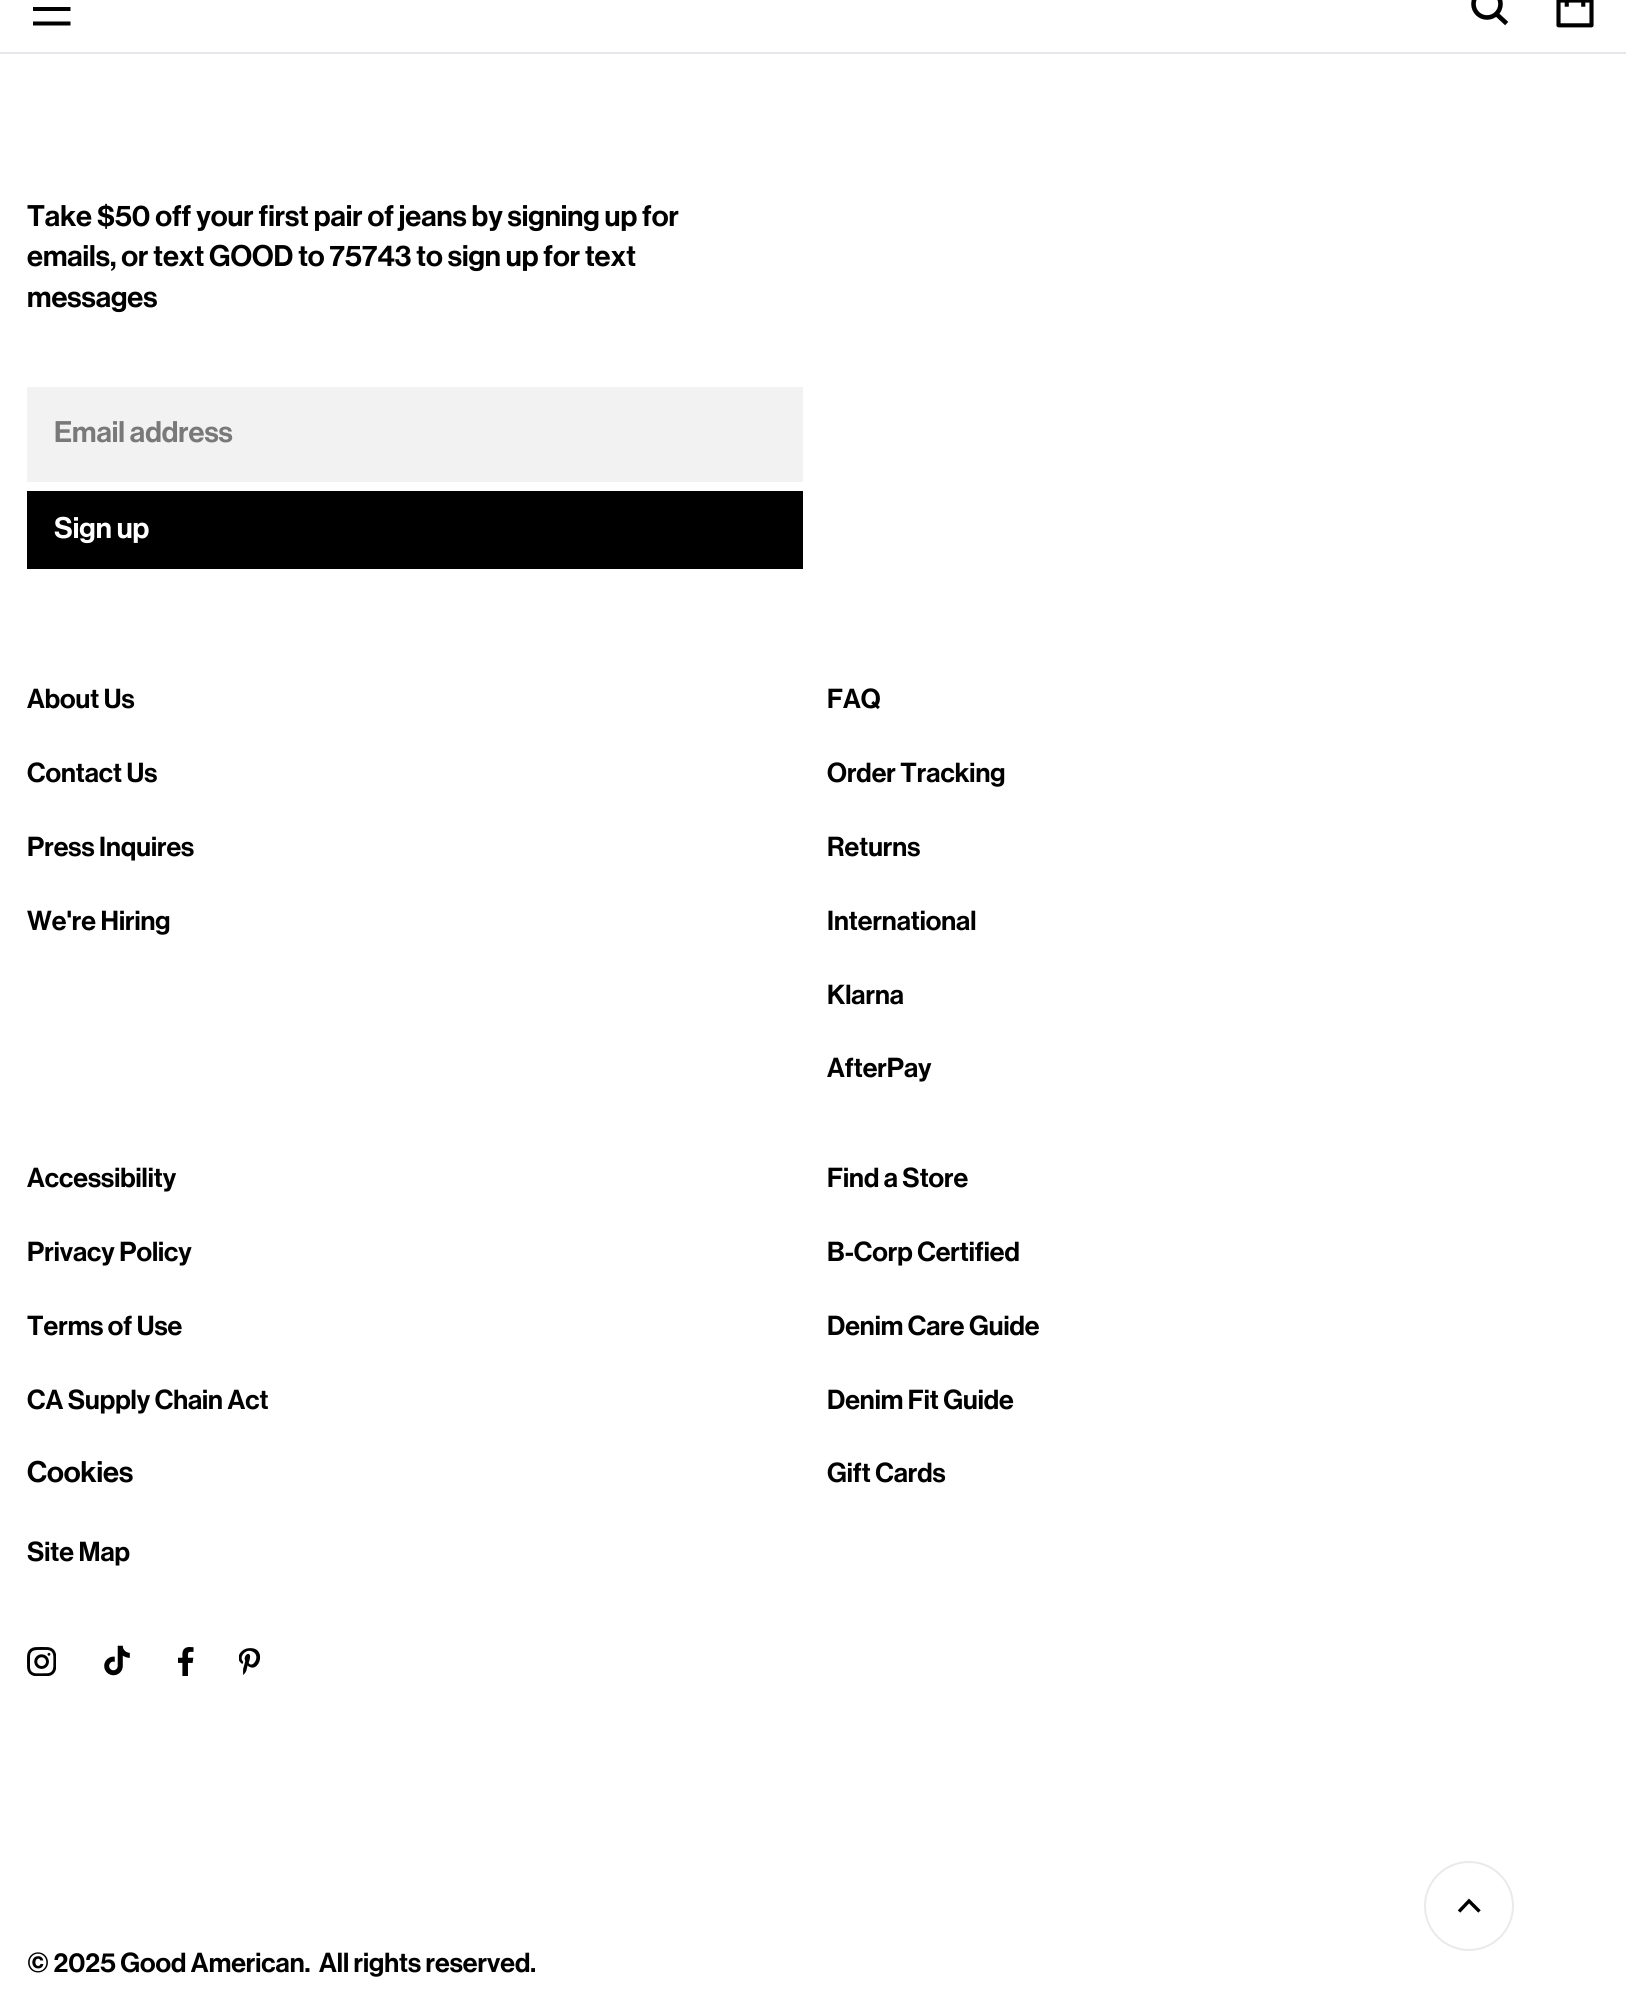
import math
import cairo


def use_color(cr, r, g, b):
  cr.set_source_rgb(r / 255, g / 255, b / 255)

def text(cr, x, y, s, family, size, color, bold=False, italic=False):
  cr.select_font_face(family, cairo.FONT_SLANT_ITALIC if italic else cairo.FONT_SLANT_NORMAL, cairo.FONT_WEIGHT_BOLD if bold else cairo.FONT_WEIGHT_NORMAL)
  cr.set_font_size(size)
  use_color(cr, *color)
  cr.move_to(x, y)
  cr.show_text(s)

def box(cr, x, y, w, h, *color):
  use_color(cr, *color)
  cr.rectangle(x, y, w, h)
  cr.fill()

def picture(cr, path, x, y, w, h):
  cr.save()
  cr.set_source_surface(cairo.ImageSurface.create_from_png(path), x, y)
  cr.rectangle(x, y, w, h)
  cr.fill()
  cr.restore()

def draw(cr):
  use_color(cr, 255, 255, 255)
  cr.paint()
  box(cr, 0, 52, 1626, 2, 229, 231, 235)
  use_color(cr, 0, 0, 0)
  cr.new_path()
  cr.move_to(33, -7.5)
  cr.line_to(70.5, -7.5)
  cr.line_to(70.5, -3.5)
  cr.line_to(33, -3.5)
  cr.close_path()
  cr.move_to(33, 7)
  cr.line_to(70.5, 7)
  cr.line_to(70.5, 11)
  cr.line_to(33, 11)
  cr.close_path()
  cr.move_to(33, 21.5)
  cr.line_to(70.5, 21.5)
  cr.line_to(70.5, 25.5)
  cr.line_to(33, 25.5)
  cr.close_path()
  cr.fill()
  cr.arc(1487, 4, 13.5, 0, 2 * math.pi)
  cr.set_line_width(4.6)
  cr.stroke()
  cr.new_path()
  cr.move_to(1498, 15.5)
  cr.line_to(1505, 22)
  cr.set_line_cap(cairo.LINE_CAP_SQUARE)
  cr.stroke()
  picture(cr, "img_01.png", 1556, 0, 38, 28)
  box(cr, 27, 387, 776, 95, 242, 242, 242)
  box(cr, 27, 491, 776, 78, 0, 0, 0)
  picture(cr, "img_02.png", 27, 1647, 29, 29)
  picture(cr, "img_03.png", 104, 1645, 26, 31)
  picture(cr, "img_04.png", 178, 1647, 16, 29)
  picture(cr, "img_05.png", 239, 1648, 22, 27)
  cr.arc(1469, 1906, 44, 0, 2 * math.pi)
  use_color(cr, 234, 234, 234)
  cr.set_line_width(2)
  cr.set_line_cap(cairo.LINE_CAP_BUTT)
  cr.stroke()
  cr.new_path()
  cr.move_to(1459, 1911.5)
  cr.line_to(1469, 1901)
  cr.line_to(1479.5, 1911.5)
  use_color(cr, 0, 0, 0)
  cr.set_line_width(3.4)
  cr.stroke()
  text(cr, 27, 226, "Take $50 off your first pair of jeans by signing up for", "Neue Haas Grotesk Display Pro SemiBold", 29.25, (0, 0, 0))
  text(cr, 27, 266, "emails, or text GOOD to 75743 to sign up for text", "Neue Haas Grotesk Display Pro SemiBold", 29.25, (0, 0, 0))
  text(cr, 27, 307, "messages", "Neue Haas Grotesk Display Pro SemiBold", 29.25, (0, 0, 0))
  text(cr, 54, 442, "Email address", "Neue Haas Grotesk Display Pro SemiBold", 29.25, (121, 121, 121))
  text(cr, 54, 538, "Sign up", "Neue Haas Grotesk Display Pro SemiBold", 29.25, (255, 255, 255))
  text(cr, 27, 708, "About Us", "Neue Haas Grotesk Display Pro SemiBold", 27, (0, 0, 0))
  text(cr, 27, 782, "Contact Us", "Neue Haas Grotesk Display Pro SemiBold", 27, (0, 0, 0))
  text(cr, 27, 856, "Press Inquires", "Neue Haas Grotesk Display Pro SemiBold", 27, (0, 0, 0))
  text(cr, 27, 930, "We're Hiring", "Neue Haas Grotesk Display Pro SemiBold", 27, (0, 0, 0))
  text(cr, 827, 708, "FAQ", "Neue Haas Grotesk Display Pro SemiBold", 27, (0, 0, 0))
  text(cr, 827, 782, "Order Tracking", "Neue Haas Grotesk Display Pro SemiBold", 27, (0, 0, 0))
  text(cr, 827, 856, "Returns", "Neue Haas Grotesk Display Pro SemiBold", 27, (0, 0, 0))
  text(cr, 827, 930, "International", "Neue Haas Grotesk Display Pro SemiBold", 27, (0, 0, 0))
  text(cr, 827, 1004, "Klarna", "Neue Haas Grotesk Display Pro SemiBold", 27, (0, 0, 0))
  text(cr, 827, 1077, "AfterPay", "Neue Haas Grotesk Display Pro SemiBold", 27, (0, 0, 0))
  text(cr, 27, 1187, "Accessibility", "Neue Haas Grotesk Display Pro SemiBold", 27, (0, 0, 0))
  text(cr, 27, 1261, "Privacy Policy", "Neue Haas Grotesk Display Pro SemiBold", 27, (0, 0, 0))
  text(cr, 27, 1335, "Terms of Use", "Neue Haas Grotesk Display Pro SemiBold", 27, (0, 0, 0))
  text(cr, 27, 1409, "CA Supply Chain Act", "Neue Haas Grotesk Display Pro SemiBold", 27, (0, 0, 0))
  text(cr, 27, 1482, "Cookies", "Neue Haas Grotesk Display Pro SemiBold", 29.25, (0, 0, 0))
  text(cr, 27, 1561, "Site Map", "Neue Haas Grotesk Display Pro SemiBold", 27, (0, 0, 0))
  text(cr, 827, 1187, "Find a Store", "Neue Haas Grotesk Display Pro SemiBold", 27, (0, 0, 0))
  text(cr, 827, 1261, "B-Corp Certified", "Neue Haas Grotesk Display Pro SemiBold", 27, (0, 0, 0))
  text(cr, 827, 1335, "Denim Care Guide", "Neue Haas Grotesk Display Pro SemiBold", 27, (0, 0, 0))
  text(cr, 827, 1409, "Denim Fit Guide", "Neue Haas Grotesk Display Pro SemiBold", 27, (0, 0, 0))
  text(cr, 827, 1482, "Gift Cards", "Neue Haas Grotesk Display Pro SemiBold", 27, (0, 0, 0))
  text(cr, 27, 1972, "© 2025 Good American.", "Neue Haas Grotesk Display Pro SemiBold", 27, (0, 0, 0))
  text(cr, 319, 1972, "All rights reserved.", "Neue Haas Grotesk Display Pro SemiBold", 27, (0, 0, 0))


surface = cairo.ImageSurface(cairo.FORMAT_RGB24, 1626, 2000)
cr = cairo.Context(surface)
options = cairo.FontOptions()
options.set_hint_metrics(cairo.HINT_METRICS_OFF)
options.set_hint_style(cairo.HINT_STYLE_NONE)
cr.set_font_options(options)
cr.set_miter_limit(4)
draw(cr)
surface.write_to_png("out.png")
